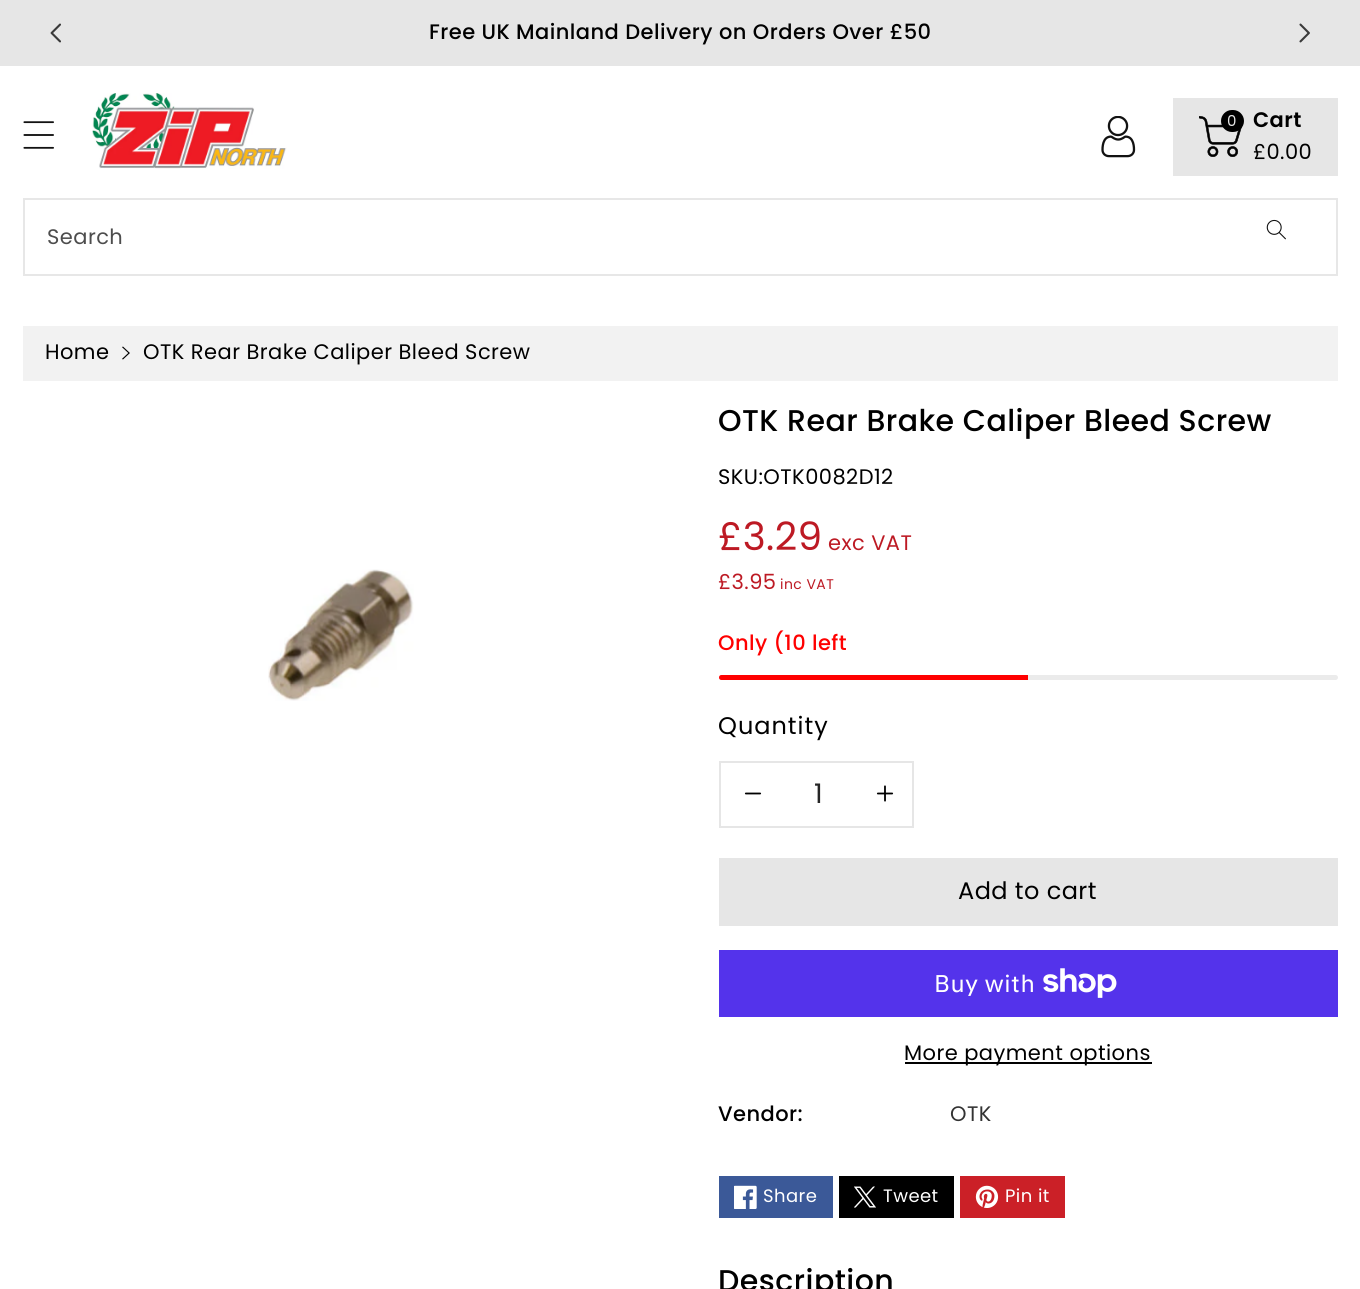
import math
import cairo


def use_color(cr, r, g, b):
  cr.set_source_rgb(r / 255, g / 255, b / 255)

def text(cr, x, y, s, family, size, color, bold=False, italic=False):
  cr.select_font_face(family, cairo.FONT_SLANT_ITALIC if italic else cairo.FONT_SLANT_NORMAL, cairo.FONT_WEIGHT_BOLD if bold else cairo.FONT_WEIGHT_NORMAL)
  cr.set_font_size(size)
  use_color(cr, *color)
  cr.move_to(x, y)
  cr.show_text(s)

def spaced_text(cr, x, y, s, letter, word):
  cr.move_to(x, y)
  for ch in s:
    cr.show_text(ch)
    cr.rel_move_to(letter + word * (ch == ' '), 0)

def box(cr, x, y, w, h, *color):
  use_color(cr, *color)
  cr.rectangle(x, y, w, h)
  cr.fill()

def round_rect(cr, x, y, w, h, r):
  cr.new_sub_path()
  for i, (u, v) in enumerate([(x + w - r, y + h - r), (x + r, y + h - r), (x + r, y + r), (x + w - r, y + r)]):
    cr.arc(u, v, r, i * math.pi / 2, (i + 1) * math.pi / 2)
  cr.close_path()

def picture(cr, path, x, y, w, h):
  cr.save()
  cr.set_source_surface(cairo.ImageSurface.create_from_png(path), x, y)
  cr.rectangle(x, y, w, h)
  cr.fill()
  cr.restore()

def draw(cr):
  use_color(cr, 255, 255, 255)
  cr.paint()
  box(cr, 0, 0, 1360, 66, 230, 230, 230)
  picture(cr, "img_01.png", 50, 23, 11, 20)
  picture(cr, "img_02.png", 1299, 23, 11, 20)
  picture(cr, "img_03.png", 92, 93, 195, 76)
  picture(cr, "img_04.png", 23, 121, 31, 28)
  picture(cr, "img_05.png", 1101, 116, 35, 42)
  box(cr, 1173, 98, 165, 78, 230, 230, 230)
  picture(cr, "img_06.png", 1199, 116, 43, 41)
  use_color(cr, 0, 0, 0)
  round_rect(cr, 1221, 110, 23, 22, 11)
  cr.fill()
  picture(cr, "img_07.png", 1266, 219, 20, 21)
  cr.rectangle(24, 199, 1313, 76)
  use_color(cr, 231, 231, 231)
  cr.stroke()
  box(cr, 23, 326, 1315, 55, 242, 242, 242)
  picture(cr, "img_08.png", 122, 346, 8, 14)
  picture(cr, "img_09.png", 268, 569, 146, 132)
  use_color(cr, 235, 235, 235)
  round_rect(cr, 719, 675, 619, 5, 2.5)
  cr.fill()
  use_color(cr, 255, 0, 0)
  cr.new_path()
  cr.move_to(721.5, 675)
  cr.line_to(1028, 675)
  cr.line_to(1028, 680)
  cr.line_to(721.5, 680)
  cr.curve_to(720, 680, 719, 679, 719, 677.5)
  cr.curve_to(719, 676, 720, 675, 721.5, 675)
  cr.close_path()
  cr.fill()
  picture(cr, "img_10.png", 744, 792, 18, 3)
  picture(cr, "img_11.png", 876, 785, 18, 17)
  cr.rectangle(720, 762, 193, 65)
  use_color(cr, 230, 230, 230)
  cr.stroke()
  box(cr, 719, 858, 619, 68, 230, 230, 230)
  box(cr, 719, 950, 619, 67, 84, 51, 235)
  picture(cr, "img_12.png", 1043, 968, 74, 30)
  box(cr, 905, 1062, 247, 2, 0, 0, 0)
  box(cr, 719, 1176, 114, 42, 59, 89, 152)
  picture(cr, "img_13.png", 734, 1185, 23, 24)
  box(cr, 839, 1176, 115, 42, 0, 0, 0)
  picture(cr, "img_14.png", 854, 1186, 22, 22)
  box(cr, 960, 1176, 105, 42, 203, 32, 39)
  picture(cr, "img_15.png", 975, 1185, 24, 23)
  cr.select_font_face("Poppins Medium")
  cr.set_font_size(21)
  use_color(cr, 0, 0, 0)
  spaced_text(cr, 429, 39, "Free UK Mainland Delivery on Orders Over £50", 0.45, 0)
  cr.select_font_face("Poppins")
  cr.set_font_size(15)
  use_color(cr, 230, 230, 230)
  spaced_text(cr, 1227, 126, "0", 0.45, 0)
  cr.select_font_face("Poppins SemiBold")
  cr.set_font_size(21)
  use_color(cr, 0, 0, 0)
  spaced_text(cr, 1253, 127, "Cart", 0.45, 0)
  cr.select_font_face("Poppins")
  spaced_text(cr, 1253, 159, "£0.00", 0.45, 0)
  use_color(cr, 77, 77, 77)
  spaced_text(cr, 47, 244, "Search", 0.45, 0)
  use_color(cr, 0, 0, 0)
  spaced_text(cr, 45, 359, "Home", 0.45, 0)
  spaced_text(cr, 143, 359, "OTK Rear Brake Caliper Bleed Screw", 0.45, 0)
  cr.select_font_face("Poppins Medium")
  cr.set_font_size(30)
  spaced_text(cr, 718, 431, "OTK Rear Brake Caliper Bleed Screw", 0.45, 0)
  cr.select_font_face("Poppins")
  cr.set_font_size(21)
  spaced_text(cr, 718, 484, "SKU:OTK0082D12", 0.45, 0)
  cr.set_font_size(39)
  use_color(cr, 189, 26, 36)
  spaced_text(cr, 718, 550, "£3.29", 0.45, 0)
  cr.set_font_size(21)
  spaced_text(cr, 828, 550, "exc VAT", 0.45, 0)
  spaced_text(cr, 718, 589, "£3.95", 0.45, 0)
  cr.set_font_size(14)
  spaced_text(cr, 780, 589, "inc VAT", 0.45, 0)
  cr.select_font_face("Poppins Medium")
  cr.set_font_size(21)
  use_color(cr, 255, 0, 0)
  spaced_text(cr, 718, 650, "Only (10 left", 0.45, 0)
  cr.select_font_face("Poppins")
  cr.set_font_size(24)
  use_color(cr, 0, 0, 0)
  spaced_text(cr, 718, 734, "Quantity", 1, 0)
  text(cr, 814, 803, "1", "Poppins", 27, (38, 38, 38))
  cr.set_font_size(24)
  use_color(cr, 0, 0, 0)
  spaced_text(cr, 958, 899, "Add to cart", 0.45, 0)
  cr.select_font_face("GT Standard")
  use_color(cr, 255, 255, 255)
  spaced_text(cr, 934, 992, "Buy with", 0.45, 0)
  cr.select_font_face("Poppins")
  cr.set_font_size(21)
  use_color(cr, 0, 0, 0)
  spaced_text(cr, 904, 1060, "More payment options", 0.45, 0)
  cr.select_font_face("Poppins Medium")
  spaced_text(cr, 718, 1121, "Vendor:", 0.45, 0)
  cr.select_font_face("Poppins")
  use_color(cr, 51, 51, 51)
  spaced_text(cr, 950, 1121, "OTK", 0.45, 0)
  cr.set_font_size(18)
  use_color(cr, 255, 255, 255)
  spaced_text(cr, 763, 1202, "Share", 0.45, 0)
  spaced_text(cr, 883, 1202, "Tweet", 0.45, 0)
  spaced_text(cr, 1005, 1202, "Pin it", 0.45, 0)
  cr.select_font_face("Poppins Medium")
  cr.set_font_size(30)
  use_color(cr, 0, 0, 0)
  spaced_text(cr, 718, 1291, "Description", 0.45, 0)


surface = cairo.ImageSurface(cairo.FORMAT_RGB24, 1360, 1289)
cr = cairo.Context(surface)
options = cairo.FontOptions()
options.set_hint_metrics(cairo.HINT_METRICS_OFF)
options.set_hint_style(cairo.HINT_STYLE_NONE)
cr.set_font_options(options)
cr.set_miter_limit(4)
draw(cr)
surface.write_to_png("out.png")
